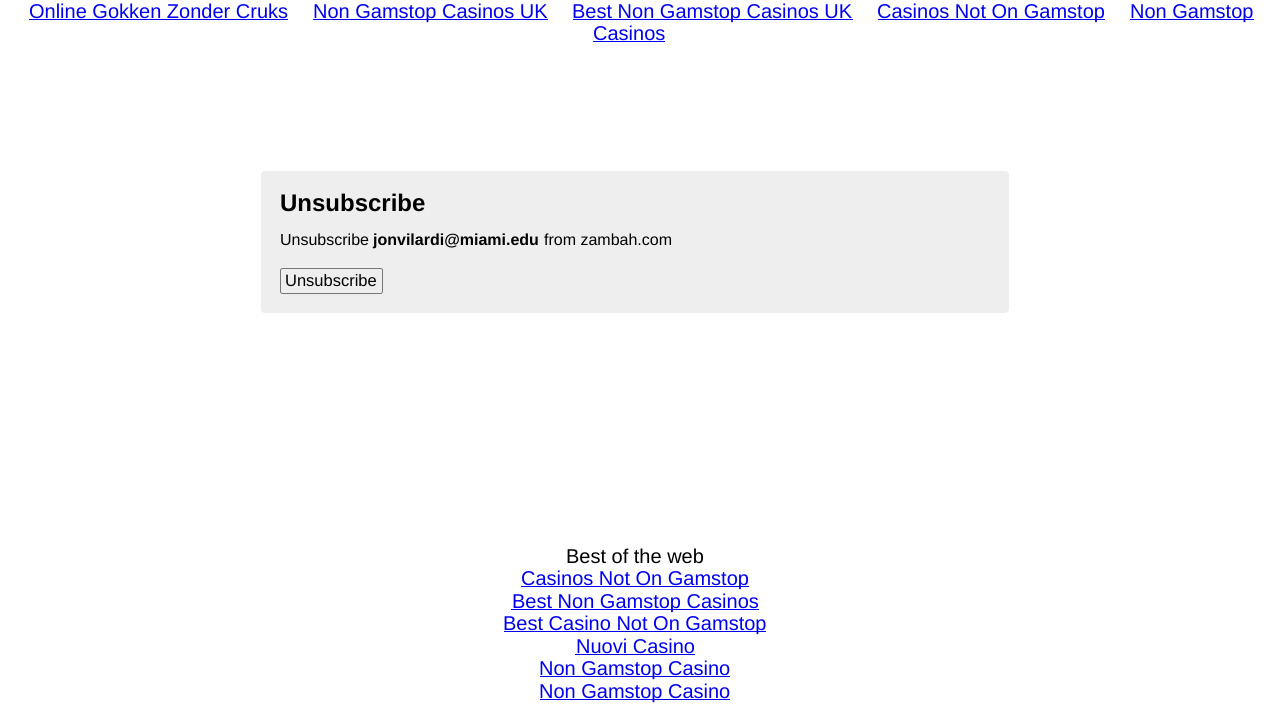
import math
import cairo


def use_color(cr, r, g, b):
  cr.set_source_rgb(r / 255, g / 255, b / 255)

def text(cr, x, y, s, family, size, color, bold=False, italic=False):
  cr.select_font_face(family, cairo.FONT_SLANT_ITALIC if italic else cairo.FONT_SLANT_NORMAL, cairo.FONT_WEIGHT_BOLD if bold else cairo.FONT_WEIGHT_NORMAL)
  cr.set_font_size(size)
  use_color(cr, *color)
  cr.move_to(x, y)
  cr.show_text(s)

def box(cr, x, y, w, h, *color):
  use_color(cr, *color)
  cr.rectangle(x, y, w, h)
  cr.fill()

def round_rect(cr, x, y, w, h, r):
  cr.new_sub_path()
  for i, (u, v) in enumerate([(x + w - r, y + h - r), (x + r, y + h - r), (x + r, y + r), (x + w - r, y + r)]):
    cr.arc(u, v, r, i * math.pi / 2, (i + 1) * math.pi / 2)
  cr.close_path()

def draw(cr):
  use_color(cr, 255, 255, 255)
  cr.paint()
  box(cr, 29, 19, 259, 1, 0, 0, 238)
  box(cr, 313, 19, 235, 1, 0, 0, 238)
  box(cr, 573, 19, 280, 1, 0, 0, 238)
  box(cr, 878, 19, 227, 1, 0, 0, 238)
  box(cr, 1130, 19, 124, 1, 0, 0, 238)
  box(cr, 593, 41, 72, 1, 0, 0, 238)
  use_color(cr, 238, 238, 238)
  round_rect(cr, 260.5, 170.5, 749, 143, 4.5)
  cr.fill_preserve()
  use_color(cr, 255, 255, 255)
  cr.set_line_width(1)
  cr.stroke()
  round_rect(cr, 280.5, 268.5, 102, 25, 2)
  use_color(cr, 118, 118, 118)
  cr.stroke()
  box(cr, 521, 586, 228, 1, 0, 0, 238)
  box(cr, 511, 609, 248, 1, 0, 0, 238)
  box(cr, 504, 631, 262, 1, 0, 0, 238)
  box(cr, 575, 654, 120, 1, 0, 0, 238)
  box(cr, 540, 676, 190, 1, 0, 0, 238)
  box(cr, 540, 699, 190, 1, 0, 0, 238)
  text(cr, 29, 18, "Online Gokken Zonder Cruks", "Liberation Sans", 20, (0, 0, 238))
  text(cr, 313, 18, "Non Gamstop Casinos UK", "Liberation Sans", 20, (0, 0, 238))
  text(cr, 572, 18, "Best Non Gamstop Casinos UK", "Liberation Sans", 20, (0, 0, 238))
  text(cr, 877, 18, "Casinos Not On Gamstop", "Liberation Sans", 20, (0, 0, 238))
  text(cr, 1130, 18, "Non Gamstop", "Liberation Sans", 20, (0, 0, 238))
  text(cr, 593, 40, "Casinos", "Liberation Sans", 20, (0, 0, 238))
  text(cr, 280, 211, "Unsubscribe", "Liberation Sans", 24, (0, 0, 0), bold=True)
  text(cr, 280, 245, "Unsubscribe", "Liberation Sans", 16, (0, 0, 0))
  text(cr, 373, 245, "jonvilardi@miami.edu", "Liberation Sans", 16, (0, 0, 0), bold=True)
  text(cr, 544, 245, "from zambah.com", "Liberation Sans", 16, (0, 0, 0))
  text(cr, 285, 286, "Unsubscribe", "Liberation Sans", 16.5, (0, 0, 0))
  text(cr, 566, 563, "Best of the web", "Liberation Sans", 20, (0, 0, 0))
  text(cr, 521, 585, "Casinos Not On Gamstop", "Liberation Sans", 20, (0, 0, 238))
  text(cr, 512, 608, "Best Non Gamstop Casinos", "Liberation Sans", 20, (0, 0, 238))
  text(cr, 503, 630, "Best Casino Not On Gamstop", "Liberation Sans", 20, (0, 0, 238))
  text(cr, 576, 653, "Nuovi Casino", "Liberation Sans", 20, (0, 0, 238))
  text(cr, 539, 675, "Non Gamstop Casino", "Liberation Sans", 20, (0, 0, 238))
  text(cr, 539, 698, "Non Gamstop Casino", "Liberation Sans", 20, (0, 0, 238))


surface = cairo.ImageSurface(cairo.FORMAT_RGB24, 1269, 704)
cr = cairo.Context(surface)
options = cairo.FontOptions()
options.set_hint_metrics(cairo.HINT_METRICS_OFF)
options.set_hint_style(cairo.HINT_STYLE_NONE)
cr.set_font_options(options)
cr.set_miter_limit(4)
draw(cr)
surface.write_to_png("out.png")
